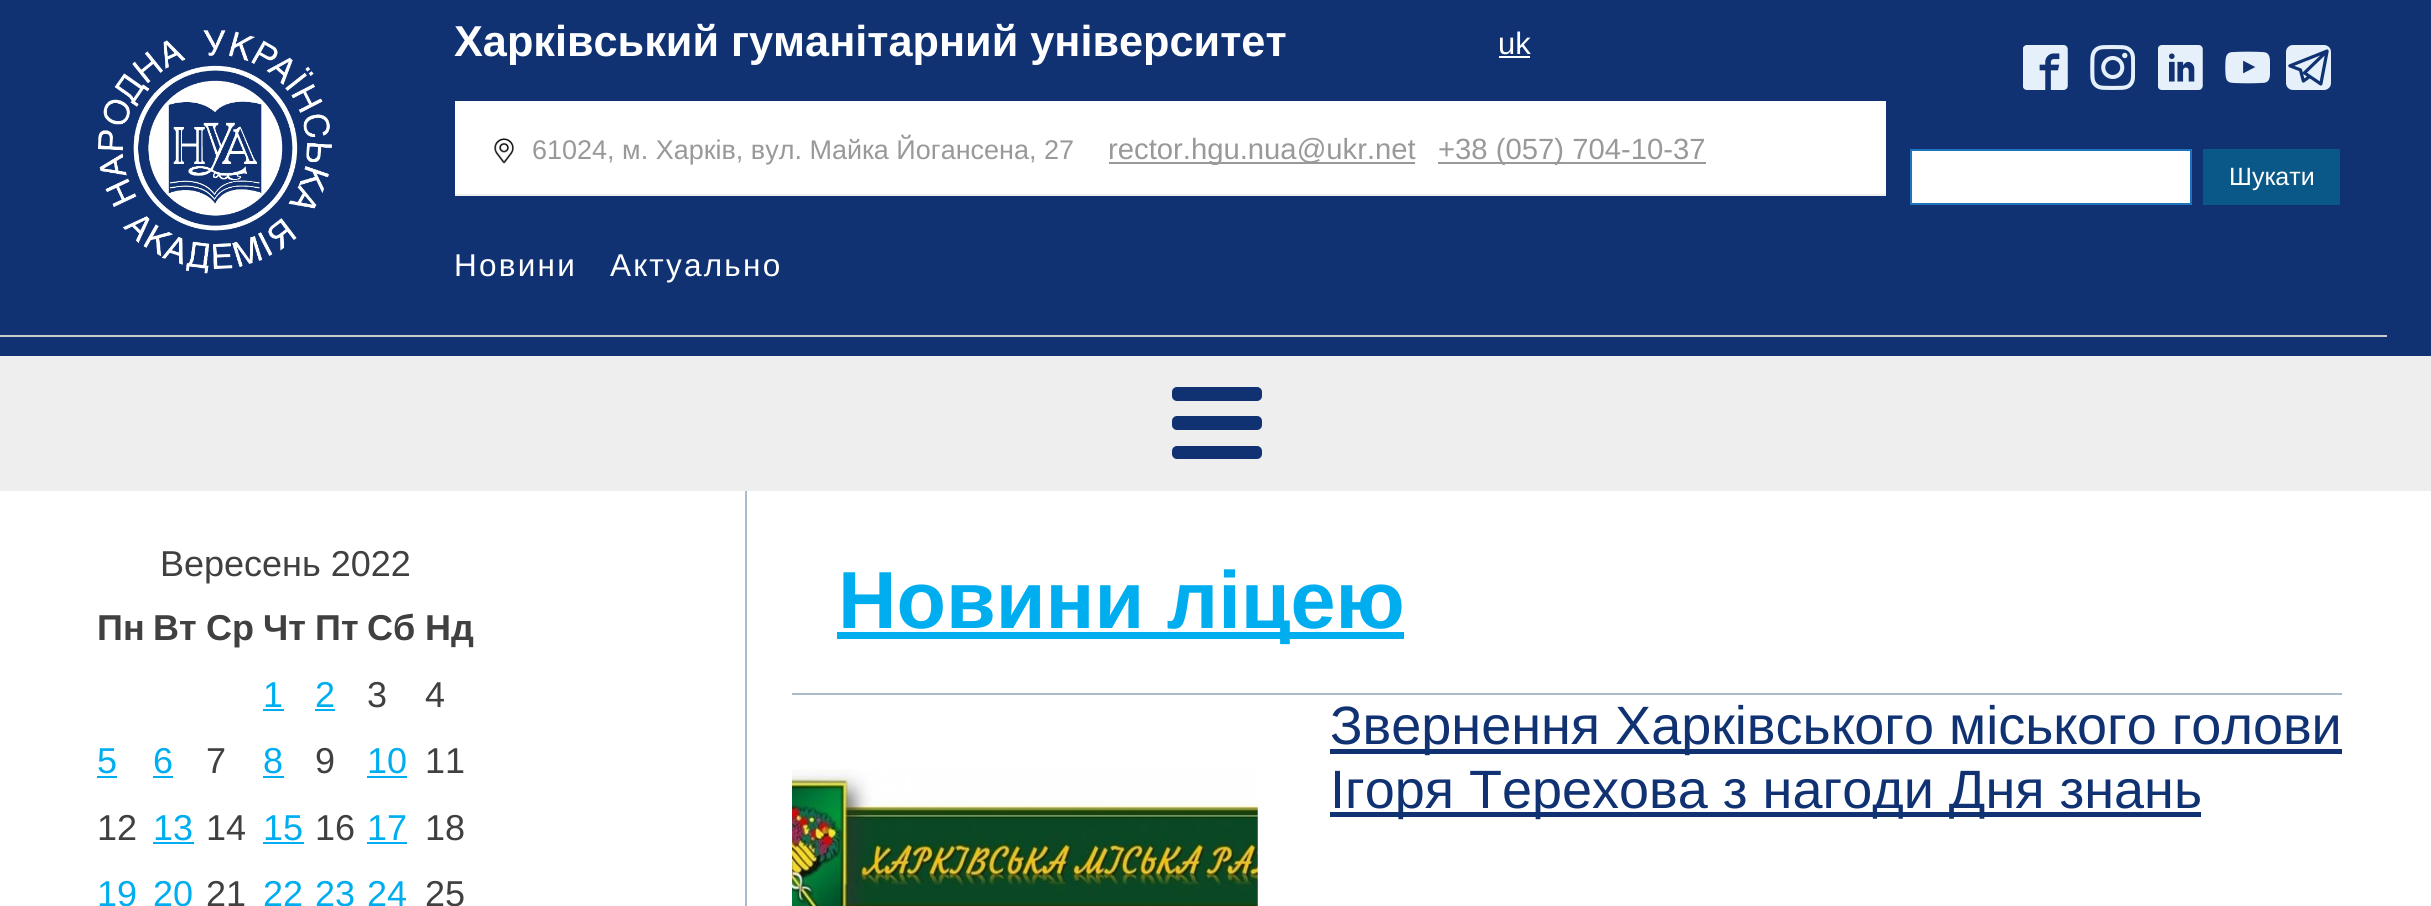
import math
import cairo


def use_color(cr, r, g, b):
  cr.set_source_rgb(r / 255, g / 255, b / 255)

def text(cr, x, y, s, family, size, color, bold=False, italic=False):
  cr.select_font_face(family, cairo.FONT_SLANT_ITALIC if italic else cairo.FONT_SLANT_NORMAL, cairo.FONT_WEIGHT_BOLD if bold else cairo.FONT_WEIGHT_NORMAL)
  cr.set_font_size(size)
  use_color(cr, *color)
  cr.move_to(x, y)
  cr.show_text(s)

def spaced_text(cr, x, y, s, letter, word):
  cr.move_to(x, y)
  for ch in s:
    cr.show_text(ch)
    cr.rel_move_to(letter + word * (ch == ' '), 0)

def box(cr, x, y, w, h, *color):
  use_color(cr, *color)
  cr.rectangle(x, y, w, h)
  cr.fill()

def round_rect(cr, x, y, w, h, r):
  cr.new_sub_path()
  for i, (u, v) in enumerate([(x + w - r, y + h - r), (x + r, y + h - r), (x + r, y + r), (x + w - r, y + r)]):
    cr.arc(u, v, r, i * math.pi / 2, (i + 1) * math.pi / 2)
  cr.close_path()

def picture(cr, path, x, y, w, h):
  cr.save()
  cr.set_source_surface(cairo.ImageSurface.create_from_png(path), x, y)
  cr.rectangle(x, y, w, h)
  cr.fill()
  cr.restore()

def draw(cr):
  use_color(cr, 255, 255, 255)
  cr.paint()
  box(cr, 0, 0, 2431, 356, 16, 50, 114)
  box(cr, 0, 335, 2387, 2, 204, 204, 204)
  picture(cr, "img_01.png", 98, 30, 234, 244)
  box(cr, 1499, 56, 31, 2, 255, 255, 255)
  box(cr, 455, 101, 1431, 93, 255, 255, 255)
  box(cr, 455, 194, 1431, 2, 238, 238, 238)
  picture(cr, "img_02.png", 494, 138, 20, 26)
  box(cr, 1109, 162, 306, 2, 153, 153, 153)
  box(cr, 1438, 162, 268, 2, 153, 153, 153)
  picture(cr, "img_03.png", 2023, 45, 45, 45)
  picture(cr, "img_04.png", 2090, 45, 45, 45)
  picture(cr, "img_05.png", 2158, 45, 45, 45)
  picture(cr, "img_06.png", 2225, 51, 45, 33)
  use_color(cr, 230, 240, 250)
  round_rect(cr, 2287, 46, 43, 43, 6)
  cr.fill_preserve()
  cr.stroke()
  picture(cr, "img_07.png", 2288, 49, 41, 37)
  use_color(cr, 255, 255, 255)
  cr.rectangle(1911, 150, 280, 54)
  cr.fill_preserve()
  use_color(cr, 30, 115, 190)
  cr.stroke()
  box(cr, 2203, 149, 137, 56, 10, 88, 136)
  box(cr, 0, 356, 2431, 135, 238, 238, 238)
  use_color(cr, 16, 50, 114)
  round_rect(cr, 1172, 387, 90, 14, 5)
  cr.fill()
  round_rect(cr, 1172, 416, 90, 14, 5)
  cr.fill()
  round_rect(cr, 1172, 446, 90, 13, 5)
  cr.fill()
  box(cr, 745, 491, 2, 415, 170, 187, 204)
  box(cr, 263, 709, 21, 2, 0, 173, 239)
  box(cr, 315, 709, 20, 2, 0, 173, 239)
  box(cr, 97, 776, 20, 2, 0, 173, 239)
  box(cr, 153, 776, 20, 2, 0, 173, 239)
  box(cr, 263, 776, 21, 2, 0, 173, 239)
  box(cr, 367, 776, 40, 2, 0, 173, 239)
  box(cr, 153, 842, 41, 2, 0, 173, 239)
  box(cr, 263, 842, 41, 2, 0, 173, 239)
  box(cr, 367, 842, 40, 2, 0, 173, 239)
  box(cr, 792, 693, 1550, 2, 170, 187, 204)
  box(cr, 837, 632, 567, 7, 0, 173, 239)
  picture(cr, "img_08.png", 792, 769, 466, 137)
  box(cr, 1330, 749, 1012, 5, 16, 50, 114)
  box(cr, 1330, 812, 871, 5, 16, 50, 114)
  text(cr, 454, 56, "Харківський гуманітарний університет", "Liberation Sans", 43.25, (255, 255, 255), bold=True)
  text(cr, 1498, 54, "uk", "Liberation Sans", 31, (255, 255, 255))
  text(cr, 532, 159, "61024, м. Харків, вул. Майка Йогансена, 27", "Liberation Sans", 27, (153, 153, 153))
  text(cr, 1108, 159, "rector.hgu.nua@ukr.net", "Liberation Sans", 29.25, (153, 153, 153))
  text(cr, 1438, 159, "+38 (057) 704-10-37", "Liberation Sans", 29.25, (153, 153, 153))
  cr.set_font_size(31.5)
  use_color(cr, 255, 255, 255)
  spaced_text(cr, 454, 276, "Новини", 2.25, 0)
  spaced_text(cr, 610, 276, "Актуально", 2.25, 0)
  text(cr, 2229, 185, "Шукати", "Liberation Sans", 25, (255, 255, 255))
  text(cr, 160, 576, "Вересень 2022", "Liberation Sans", 36, (64, 64, 64))
  text(cr, 97, 640, "Пн", "Liberation Sans", 36, (64, 64, 64), bold=True)
  text(cr, 153, 640, "Вт", "Liberation Sans", 36, (64, 64, 64), bold=True)
  text(cr, 206, 640, "Ср", "Liberation Sans", 36, (64, 64, 64), bold=True)
  text(cr, 263, 640, "Чт", "Liberation Sans", 36, (64, 64, 64), bold=True)
  text(cr, 315, 640, "Пт", "Liberation Sans", 36, (64, 64, 64), bold=True)
  text(cr, 367, 640, "Сб", "Liberation Sans", 36, (64, 64, 64), bold=True)
  text(cr, 425, 640, "Нд", "Liberation Sans", 36, (64, 64, 64), bold=True)
  text(cr, 263, 707, "1", "Liberation Sans", 36, (0, 173, 239))
  text(cr, 315, 707, "2", "Liberation Sans", 36, (0, 173, 239))
  text(cr, 367, 707, "3", "Liberation Sans", 36, (64, 64, 64))
  text(cr, 425, 707, "4", "Liberation Sans", 36, (64, 64, 64))
  text(cr, 97, 773, "5", "Liberation Sans", 36, (0, 173, 239))
  text(cr, 153, 773, "6", "Liberation Sans", 36, (0, 173, 239))
  text(cr, 206, 773, "7", "Liberation Sans", 36, (64, 64, 64))
  text(cr, 263, 773, "8", "Liberation Sans", 36, (0, 173, 239))
  text(cr, 315, 773, "9", "Liberation Sans", 36, (64, 64, 64))
  text(cr, 367, 773, "10", "Liberation Sans", 36, (0, 173, 239))
  text(cr, 425, 773, "11", "Liberation Sans", 36, (64, 64, 64))
  text(cr, 97, 840, "12", "Liberation Sans", 36, (64, 64, 64))
  text(cr, 153, 840, "13", "Liberation Sans", 36, (0, 173, 239))
  text(cr, 206, 840, "14", "Liberation Sans", 36, (64, 64, 64))
  text(cr, 263, 840, "15", "Liberation Sans", 36, (0, 173, 239))
  text(cr, 315, 840, "16", "Liberation Sans", 36, (64, 64, 64))
  text(cr, 367, 840, "17", "Liberation Sans", 36, (0, 173, 239))
  text(cr, 425, 840, "18", "Liberation Sans", 36, (64, 64, 64))
  text(cr, 97, 906, "19", "Liberation Sans", 36, (0, 173, 239))
  text(cr, 153, 906, "20", "Liberation Sans", 36, (0, 173, 239))
  text(cr, 206, 906, "21", "Liberation Sans", 36, (64, 64, 64))
  text(cr, 263, 906, "22", "Liberation Sans", 36, (0, 173, 239))
  text(cr, 315, 906, "23", "Liberation Sans", 36, (0, 173, 239))
  text(cr, 367, 906, "24", "Liberation Sans", 36, (0, 173, 239))
  text(cr, 425, 906, "25", "Liberation Sans", 36, (64, 64, 64))
  text(cr, 838, 628, "Новини ліцею", "Liberation Sans", 81, (0, 173, 239), bold=True)
  text(cr, 1330, 744, "Звернення Харківського міського голови", "Liberation Sans", 54, (16, 50, 114))
  text(cr, 1330, 808, "Ігоря Терехова з нагоди Дня знань", "Liberation Sans", 54, (16, 50, 114))


surface = cairo.ImageSurface(cairo.FORMAT_RGB24, 2431, 906)
cr = cairo.Context(surface)
options = cairo.FontOptions()
options.set_hint_metrics(cairo.HINT_METRICS_OFF)
options.set_hint_style(cairo.HINT_STYLE_NONE)
cr.set_font_options(options)
cr.set_miter_limit(4)
draw(cr)
surface.write_to_png("out.png")
